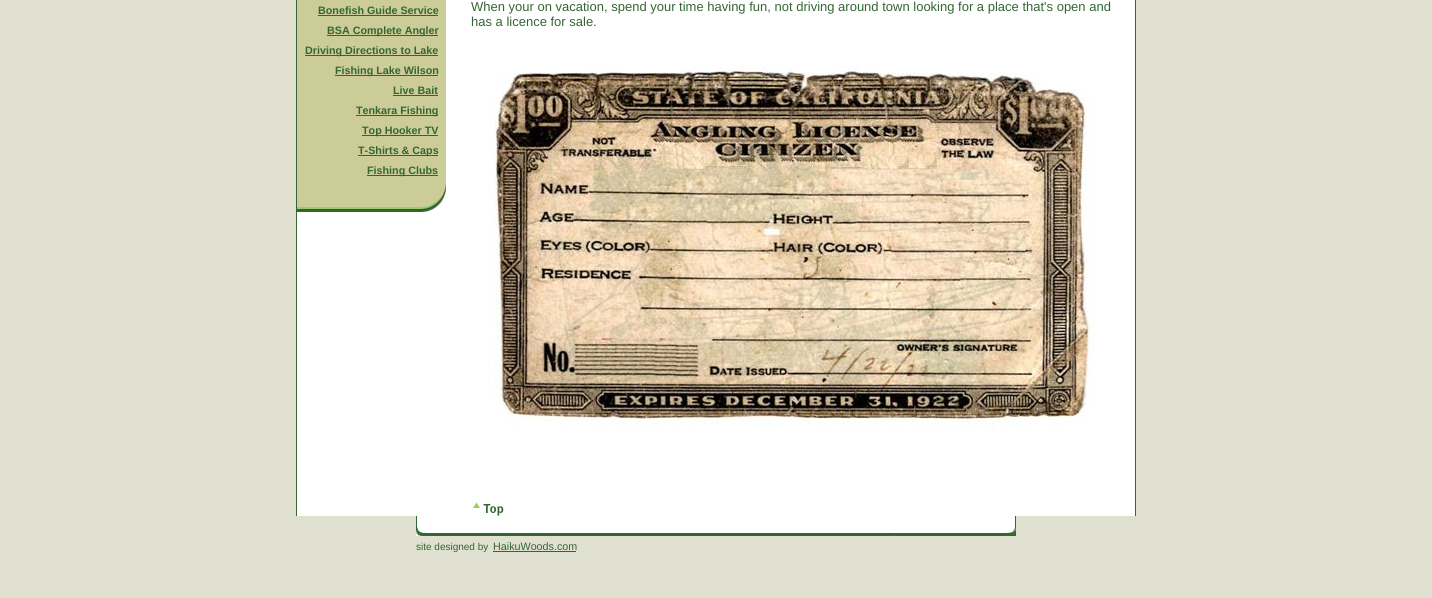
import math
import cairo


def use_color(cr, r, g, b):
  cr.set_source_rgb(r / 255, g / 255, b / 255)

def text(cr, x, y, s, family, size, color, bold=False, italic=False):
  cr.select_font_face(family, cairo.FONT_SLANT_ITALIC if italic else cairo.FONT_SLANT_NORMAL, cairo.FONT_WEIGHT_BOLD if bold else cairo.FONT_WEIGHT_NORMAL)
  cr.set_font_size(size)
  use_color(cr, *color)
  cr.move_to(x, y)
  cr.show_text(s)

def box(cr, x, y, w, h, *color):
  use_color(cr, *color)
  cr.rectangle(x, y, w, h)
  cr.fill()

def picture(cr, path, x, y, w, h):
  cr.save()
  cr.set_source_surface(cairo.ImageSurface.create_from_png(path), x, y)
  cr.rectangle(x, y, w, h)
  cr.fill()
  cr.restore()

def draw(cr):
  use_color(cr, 224, 224, 209)
  cr.paint()
  box(cr, 296, 0, 1, 516, 51, 102, 51)
  box(cr, 297, 0, 838, 516, 255, 255, 255)
  box(cr, 297, 0, 149, 180, 204, 204, 153)
  box(cr, 318, 15, 120, 1, 51, 102, 51)
  box(cr, 327, 35, 111, 1, 51, 102, 51)
  box(cr, 305, 55, 133, 1, 51, 102, 51)
  box(cr, 335, 75, 103, 1, 51, 102, 51)
  box(cr, 393, 95, 45, 1, 51, 102, 51)
  box(cr, 356, 115, 82, 1, 51, 102, 51)
  box(cr, 362, 135, 76, 1, 51, 102, 51)
  box(cr, 358, 155, 80, 1, 51, 102, 51)
  box(cr, 367, 175, 71, 1, 51, 102, 51)
  picture(cr, "img_01.png", 297, 180, 149, 32)
  picture(cr, "img_02.png", 488, 65, 607, 365)
  picture(cr, "img_03.png", 473, 502, 31, 14)
  box(cr, 1135, 0, 1, 516, 51, 102, 51)
  box(cr, 416, 516, 1, 10, 51, 102, 51)
  box(cr, 417, 516, 598, 10, 255, 255, 255)
  box(cr, 1015, 516, 1, 10, 51, 102, 51)
  picture(cr, "img_04.png", 416, 526, 600, 10)
  box(cr, 493, 551, 83, 1, 51, 102, 51)
  text(cr, 318, 14, "Bonefish Guide Service", "Liberation Sans", 10.75, (51, 102, 51), bold=True)
  text(cr, 327, 34, "BSA Complete Angler", "Liberation Sans", 10.75, (51, 102, 51), bold=True)
  text(cr, 305, 54, "Driving Directions to Lake", "Liberation Sans", 10.75, (51, 102, 51), bold=True)
  text(cr, 335, 74, "Fishing Lake Wilson", "Liberation Sans", 10.75, (51, 102, 51), bold=True)
  text(cr, 393, 94, "Live Bait", "Liberation Sans", 10.75, (51, 102, 51), bold=True)
  text(cr, 356, 114, "Tenkara Fishing", "Liberation Sans", 10.75, (51, 102, 51), bold=True)
  text(cr, 362, 134, "Top Hooker TV", "Liberation Sans", 10.75, (51, 102, 51), bold=True)
  text(cr, 358, 154, "T-Shirts & Caps", "Liberation Sans", 10.75, (51, 102, 51), bold=True)
  text(cr, 367, 174, "Fishing Clubs", "Liberation Sans", 10.75, (51, 102, 51), bold=True)
  text(cr, 471, 11, "When your on vacation, spend your time having fun, not driving around town looking for a place that's open and", "Liberation Sans", 13, (51, 102, 51))
  text(cr, 471, 26, "has a licence for sale.", "Liberation Sans", 13, (51, 102, 51))
  text(cr, 416, 550, "site designed by", "Liberation Sans", 10, (51, 102, 51))
  text(cr, 493, 550, "HaikuWoods.com", "Liberation Sans", 10.75, (51, 102, 51))


surface = cairo.ImageSurface(cairo.FORMAT_RGB24, 1432, 598)
cr = cairo.Context(surface)
options = cairo.FontOptions()
options.set_hint_metrics(cairo.HINT_METRICS_OFF)
options.set_hint_style(cairo.HINT_STYLE_NONE)
cr.set_font_options(options)
cr.set_miter_limit(4)
draw(cr)
surface.write_to_png("out.png")
